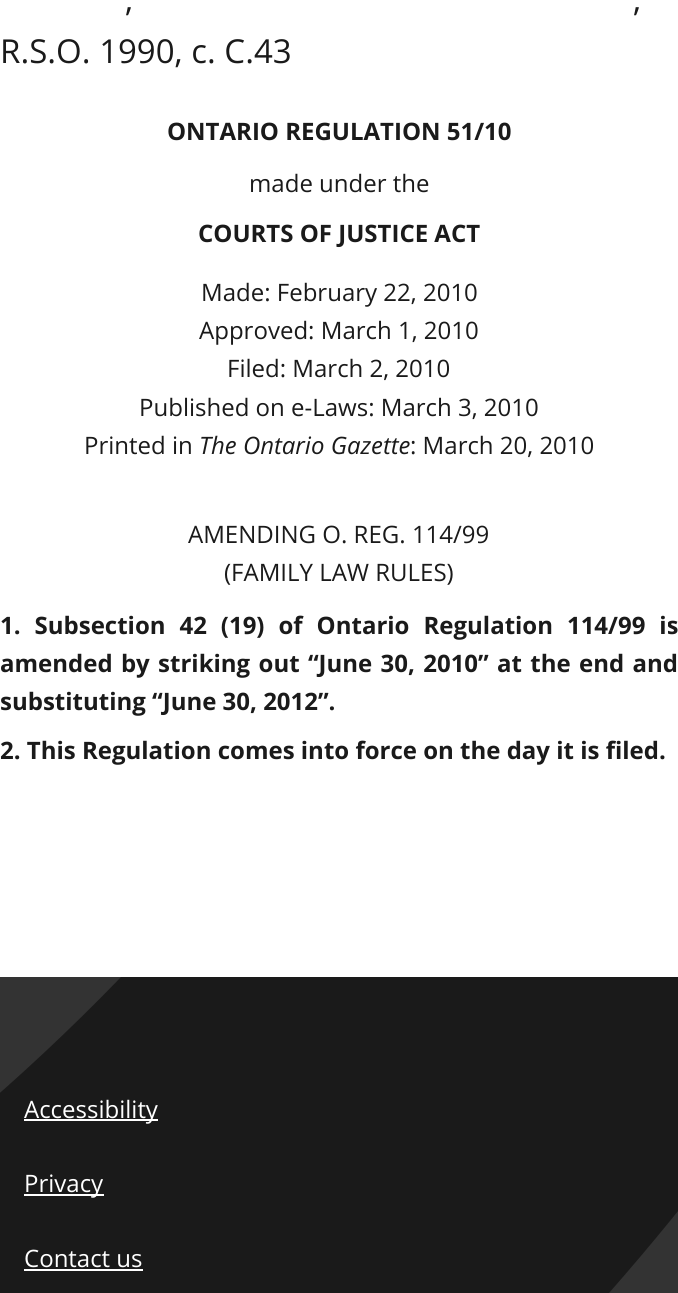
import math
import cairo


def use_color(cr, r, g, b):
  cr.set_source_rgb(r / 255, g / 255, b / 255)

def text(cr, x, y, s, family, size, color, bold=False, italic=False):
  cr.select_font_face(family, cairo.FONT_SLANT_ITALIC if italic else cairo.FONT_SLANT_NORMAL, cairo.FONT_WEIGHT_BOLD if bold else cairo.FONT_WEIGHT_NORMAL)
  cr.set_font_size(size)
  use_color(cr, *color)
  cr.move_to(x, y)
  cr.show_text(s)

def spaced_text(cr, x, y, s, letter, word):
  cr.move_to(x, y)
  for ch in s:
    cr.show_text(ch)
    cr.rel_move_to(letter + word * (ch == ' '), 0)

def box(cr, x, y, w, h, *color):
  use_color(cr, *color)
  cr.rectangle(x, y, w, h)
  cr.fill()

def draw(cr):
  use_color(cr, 255, 255, 255)
  cr.paint()
  box(cr, 0, 977, 678, 316, 51, 51, 51)
  cr.save()
  cr.rectangle(0, 977, 678, 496)
  cr.clip()
  use_color(cr, 26, 26, 26)
  cr.new_path()
  cr.move_to(102, -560)
  cr.curve_to(-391, -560, -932, -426, -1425, -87)
  cr.line_to(-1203, 438)
  cr.curve_to(-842, 162, -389, -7, 102, -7)
  cr.curve_to(285, -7, 470, 21, 641, 65)
  cr.curve_to(501, 568, 182, 1021, -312, 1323)
  cr.line_to(-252, 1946)
  cr.curve_to(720, 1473, 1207, 567, 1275, -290)
  cr.curve_to(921, -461, 520, -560, 102, -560)
  cr.close_path()
  cr.fill()
  cr.restore()
  box(cr, 24, 1119, 134, 2, 255, 255, 255)
  box(cr, 24, 1194, 80, 2, 255, 255, 255)
  box(cr, 24, 1269, 119, 2, 255, 255, 255)
  text(cr, 125, 11, ",", "Open Sans", 33, (26, 26, 26))
  text(cr, 633, 11, ",", "Open Sans", 33, (26, 26, 26))
  text(cr, 0, 63, "R.S.O. 1990, c. C.43", "Open Sans", 33, (26, 26, 26))
  text(cr, 167, 140, "ONTARIO REGULATION 51/10", "Open Sans", 24, (26, 26, 26), bold=True)
  text(cr, 249, 192, "made under the", "Open Sans", 24, (26, 26, 26))
  text(cr, 198, 242, "COURTS OF JUSTICE ACT", "Open Sans", 24, (26, 26, 26), bold=True)
  text(cr, 201, 301, "Made: February 22, 2010", "Open Sans", 24, (26, 26, 26))
  text(cr, 199, 339, "Approved: March 1, 2010", "Open Sans", 24, (26, 26, 26))
  text(cr, 227, 377, "Filed: March 2, 2010", "Open Sans", 24, (26, 26, 26))
  text(cr, 139, 416, "Published on e-Laws: March 3, 2010", "Open Sans", 24, (26, 26, 26))
  text(cr, 84, 454, "Printed in", "Open Sans", 24, (26, 26, 26))
  text(cr, 199, 454, "The Ontario Gazette", "Open Sans", 24, (26, 26, 26), italic=True)
  text(cr, 410, 454, ": March 20, 2010", "Open Sans", 24, (26, 26, 26))
  text(cr, 188, 543, "AMENDING O. REG. 114/99", "Open Sans", 24, (26, 26, 26))
  text(cr, 224, 581, "(FAMILY LAW RULES)", "Open Sans", 24, (26, 26, 26))
  cr.select_font_face("Open Sans", cairo.FONT_SLANT_NORMAL, cairo.FONT_WEIGHT_BOLD)
  spaced_text(cr, 0, 634, "1. Subsection 42 (19) of Ontario Regulation 114/99 is", 0, 7.75)
  spaced_text(cr, 0, 672, "amended by striking out “June 30, 2010” at the end and", 0, 2.1)
  text(cr, 0, 710, "substituting “June 30, 2012”.", "Open Sans", 24, (26, 26, 26), bold=True)
  text(cr, 0, 759, "2. This Regulation comes into force on the day it is filed.", "Open Sans", 24, (26, 26, 26), bold=True)
  text(cr, 24, 1118, "Accessibility", "Open Sans", 24, (255, 255, 255))
  text(cr, 24, 1192, "Privacy", "Open Sans", 24, (255, 255, 255))
  text(cr, 24, 1267, "Contact us", "Open Sans", 24, (255, 255, 255))


surface = cairo.ImageSurface(cairo.FORMAT_RGB24, 678, 1293)
cr = cairo.Context(surface)
options = cairo.FontOptions()
options.set_hint_metrics(cairo.HINT_METRICS_OFF)
options.set_hint_style(cairo.HINT_STYLE_NONE)
cr.set_font_options(options)
cr.set_miter_limit(4)
draw(cr)
surface.write_to_png("out.png")
